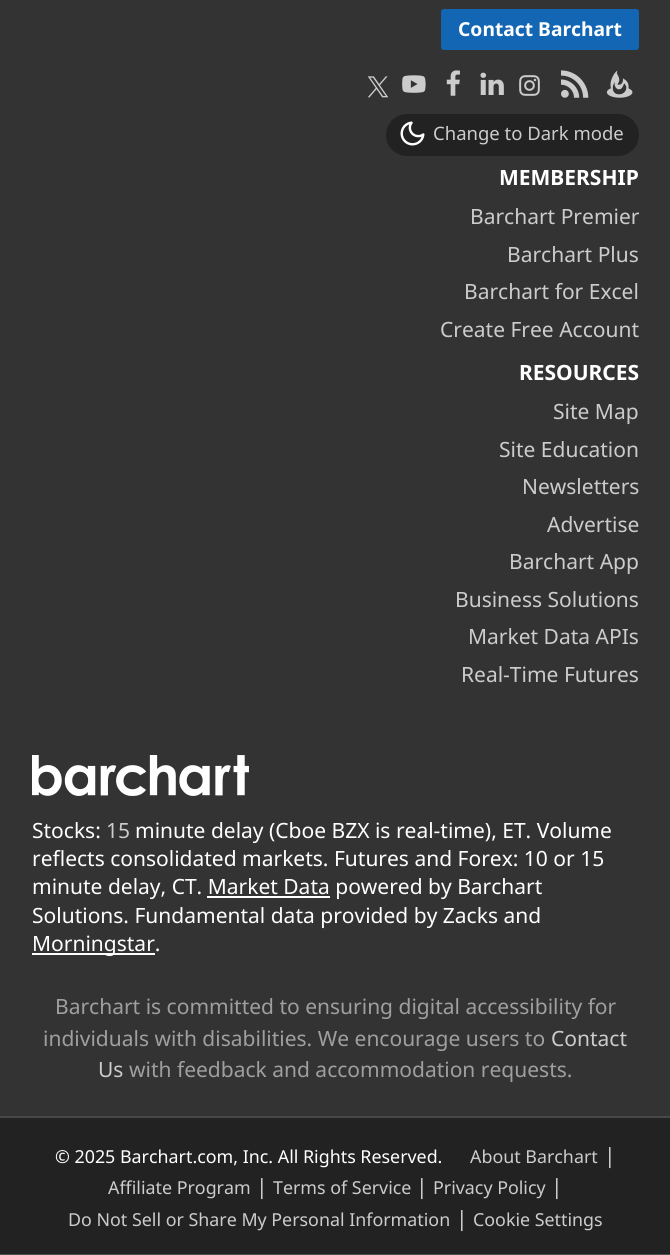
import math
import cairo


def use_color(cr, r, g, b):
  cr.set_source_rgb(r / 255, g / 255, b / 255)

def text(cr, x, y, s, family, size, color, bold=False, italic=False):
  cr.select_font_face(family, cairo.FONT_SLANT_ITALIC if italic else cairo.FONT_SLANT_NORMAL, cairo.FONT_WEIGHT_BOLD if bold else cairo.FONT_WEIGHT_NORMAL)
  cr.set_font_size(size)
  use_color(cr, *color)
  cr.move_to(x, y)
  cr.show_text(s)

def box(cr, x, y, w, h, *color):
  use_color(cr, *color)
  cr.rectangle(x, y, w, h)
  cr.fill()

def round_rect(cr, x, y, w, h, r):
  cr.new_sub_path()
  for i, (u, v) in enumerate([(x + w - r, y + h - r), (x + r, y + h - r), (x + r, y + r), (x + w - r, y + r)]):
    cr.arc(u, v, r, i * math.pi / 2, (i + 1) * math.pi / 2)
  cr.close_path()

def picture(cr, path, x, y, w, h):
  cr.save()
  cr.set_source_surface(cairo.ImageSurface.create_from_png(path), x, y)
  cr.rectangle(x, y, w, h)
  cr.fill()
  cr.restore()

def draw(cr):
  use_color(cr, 51, 51, 51)
  cr.paint()
  box(cr, 0, 1116, 670, 2, 71, 71, 71)
  use_color(cr, 18, 102, 179)
  round_rect(cr, 442, 10, 196, 39, 2)
  cr.fill_preserve()
  cr.stroke()
  picture(cr, "img_01.png", 367, 76, 22, 22)
  picture(cr, "img_02.png", 402, 75, 24, 18)
  picture(cr, "img_03.png", 446, 70, 14, 26)
  picture(cr, "img_04.png", 480, 72, 24, 23)
  picture(cr, "img_05.png", 519, 75, 21, 21)
  picture(cr, "img_06.png", 561, 70, 28, 28)
  picture(cr, "img_07.png", 606, 70, 27, 28)
  use_color(cr, 34, 34, 34)
  round_rect(cr, 386, 114, 253, 42, 21)
  cr.fill()
  picture(cr, "img_08.png", 400, 121, 25, 25)
  picture(cr, "img_09.png", 32, 755, 217, 41)
  box(cr, 207, 896, 123, 2, 255, 255, 255)
  box(cr, 32, 953, 123, 2, 255, 255, 255)
  box(cr, 0, 1118, 670, 136, 34, 34, 34)
  box(cr, 0, 1254, 670, 1, 78, 78, 78)
  text(cr, 458, 36, "Contact Barchart", "Noto Sans", 19.25, (255, 255, 255), bold=True)
  text(cr, 433, 140, "Change to Dark mode", "Noto Sans", 18.5, (204, 204, 204))
  text(cr, 499, 185, "MEMBERSHIP", "Noto Sans", 21, (255, 255, 255), bold=True)
  text(cr, 470, 224, "Barchart Premier", "Noto Sans", 21, (204, 204, 204))
  text(cr, 507, 262, "Barchart Plus", "Noto Sans", 21, (204, 204, 204))
  text(cr, 464, 299, "Barchart for Excel", "Noto Sans", 21, (204, 204, 204))
  text(cr, 440, 337, "Create Free Account", "Noto Sans", 21, (204, 204, 204))
  text(cr, 519, 380, "RESOURCES", "Noto Sans", 21, (255, 255, 255), bold=True)
  text(cr, 553, 419, "Site Map", "Noto Sans", 21, (204, 204, 204))
  text(cr, 499, 457, "Site Education", "Noto Sans", 21, (204, 204, 204))
  text(cr, 522, 494, "Newsletters", "Noto Sans", 21, (204, 204, 204))
  text(cr, 547, 532, "Advertise", "Noto Sans", 21, (204, 204, 204))
  text(cr, 509, 569, "Barchart App", "Noto Sans", 21, (204, 204, 204))
  text(cr, 455, 607, "Business Solutions", "Noto Sans", 21, (204, 204, 204))
  text(cr, 468, 644, "Market Data APIs", "Noto Sans", 21, (204, 204, 204))
  text(cr, 461, 682, "Real-Time Futures", "Noto Sans", 21, (204, 204, 204))
  text(cr, 32, 838, "Stocks:", "Noto Sans", 21, (255, 255, 255))
  text(cr, 106, 838, "15", "Noto Sans", 21, (204, 204, 204))
  text(cr, 135, 838, "minute delay (Cboe BZX is real-time), ET. Volume", "Noto Sans", 21, (255, 255, 255))
  text(cr, 32, 866, "reflects consolidated markets. Futures and Forex: 10 or 15", "Noto Sans", 21, (255, 255, 255))
  text(cr, 32, 894, "minute delay, CT. Market Data powered by Barchart", "Noto Sans", 21, (255, 255, 255))
  text(cr, 32, 923, "Solutions. Fundamental data provided by Zacks and", "Noto Sans", 21, (255, 255, 255))
  text(cr, 32, 951, "Morningstar.", "Noto Sans", 21, (255, 255, 255))
  text(cr, 55, 1014, "Barchart is committed to ensuring digital accessibility for", "Noto Sans", 21, (159, 159, 159))
  text(cr, 43, 1046, "individuals with disabilities. We encourage users to", "Noto Sans", 21, (159, 159, 159))
  text(cr, 551, 1046, "Contact", "Noto Sans", 21, (204, 204, 204))
  text(cr, 98, 1077, "Us", "Noto Sans", 21, (204, 204, 204))
  text(cr, 129, 1077, "with feedback and accommodation requests.", "Noto Sans", 21, (159, 159, 159))
  text(cr, 55, 1163, "© 2025 Barchart.com, Inc. All Rights Reserved.", "Noto Sans", 17.85, (255, 255, 255))
  text(cr, 470, 1163, "About Barchart", "Noto Sans", 17.85, (204, 204, 204))
  text(cr, 604, 1163, "|", "Noto Sans", 21, (204, 204, 204))
  text(cr, 108, 1194, "Affiliate Program", "Noto Sans", 17.85, (204, 204, 204))
  text(cr, 256, 1194, "|", "Noto Sans", 21, (204, 204, 204))
  text(cr, 273, 1194, "Terms of Service", "Noto Sans", 17.85, (204, 204, 204))
  text(cr, 416, 1194, "|", "Noto Sans", 21, (204, 204, 204))
  text(cr, 433, 1194, "Privacy Policy", "Noto Sans", 17.85, (204, 204, 204))
  text(cr, 551, 1194, "|", "Noto Sans", 21, (204, 204, 204))
  text(cr, 68, 1226, "Do Not Sell or Share My Personal Information", "Noto Sans", 17.85, (204, 204, 204))
  text(cr, 456, 1226, "|", "Noto Sans", 21, (204, 204, 204))
  text(cr, 473, 1226, "Cookie Settings", "Noto Sans", 17.85, (204, 204, 204))


surface = cairo.ImageSurface(cairo.FORMAT_RGB24, 670, 1255)
cr = cairo.Context(surface)
options = cairo.FontOptions()
options.set_hint_metrics(cairo.HINT_METRICS_OFF)
options.set_hint_style(cairo.HINT_STYLE_NONE)
cr.set_font_options(options)
cr.set_miter_limit(4)
draw(cr)
surface.write_to_png("out.png")
